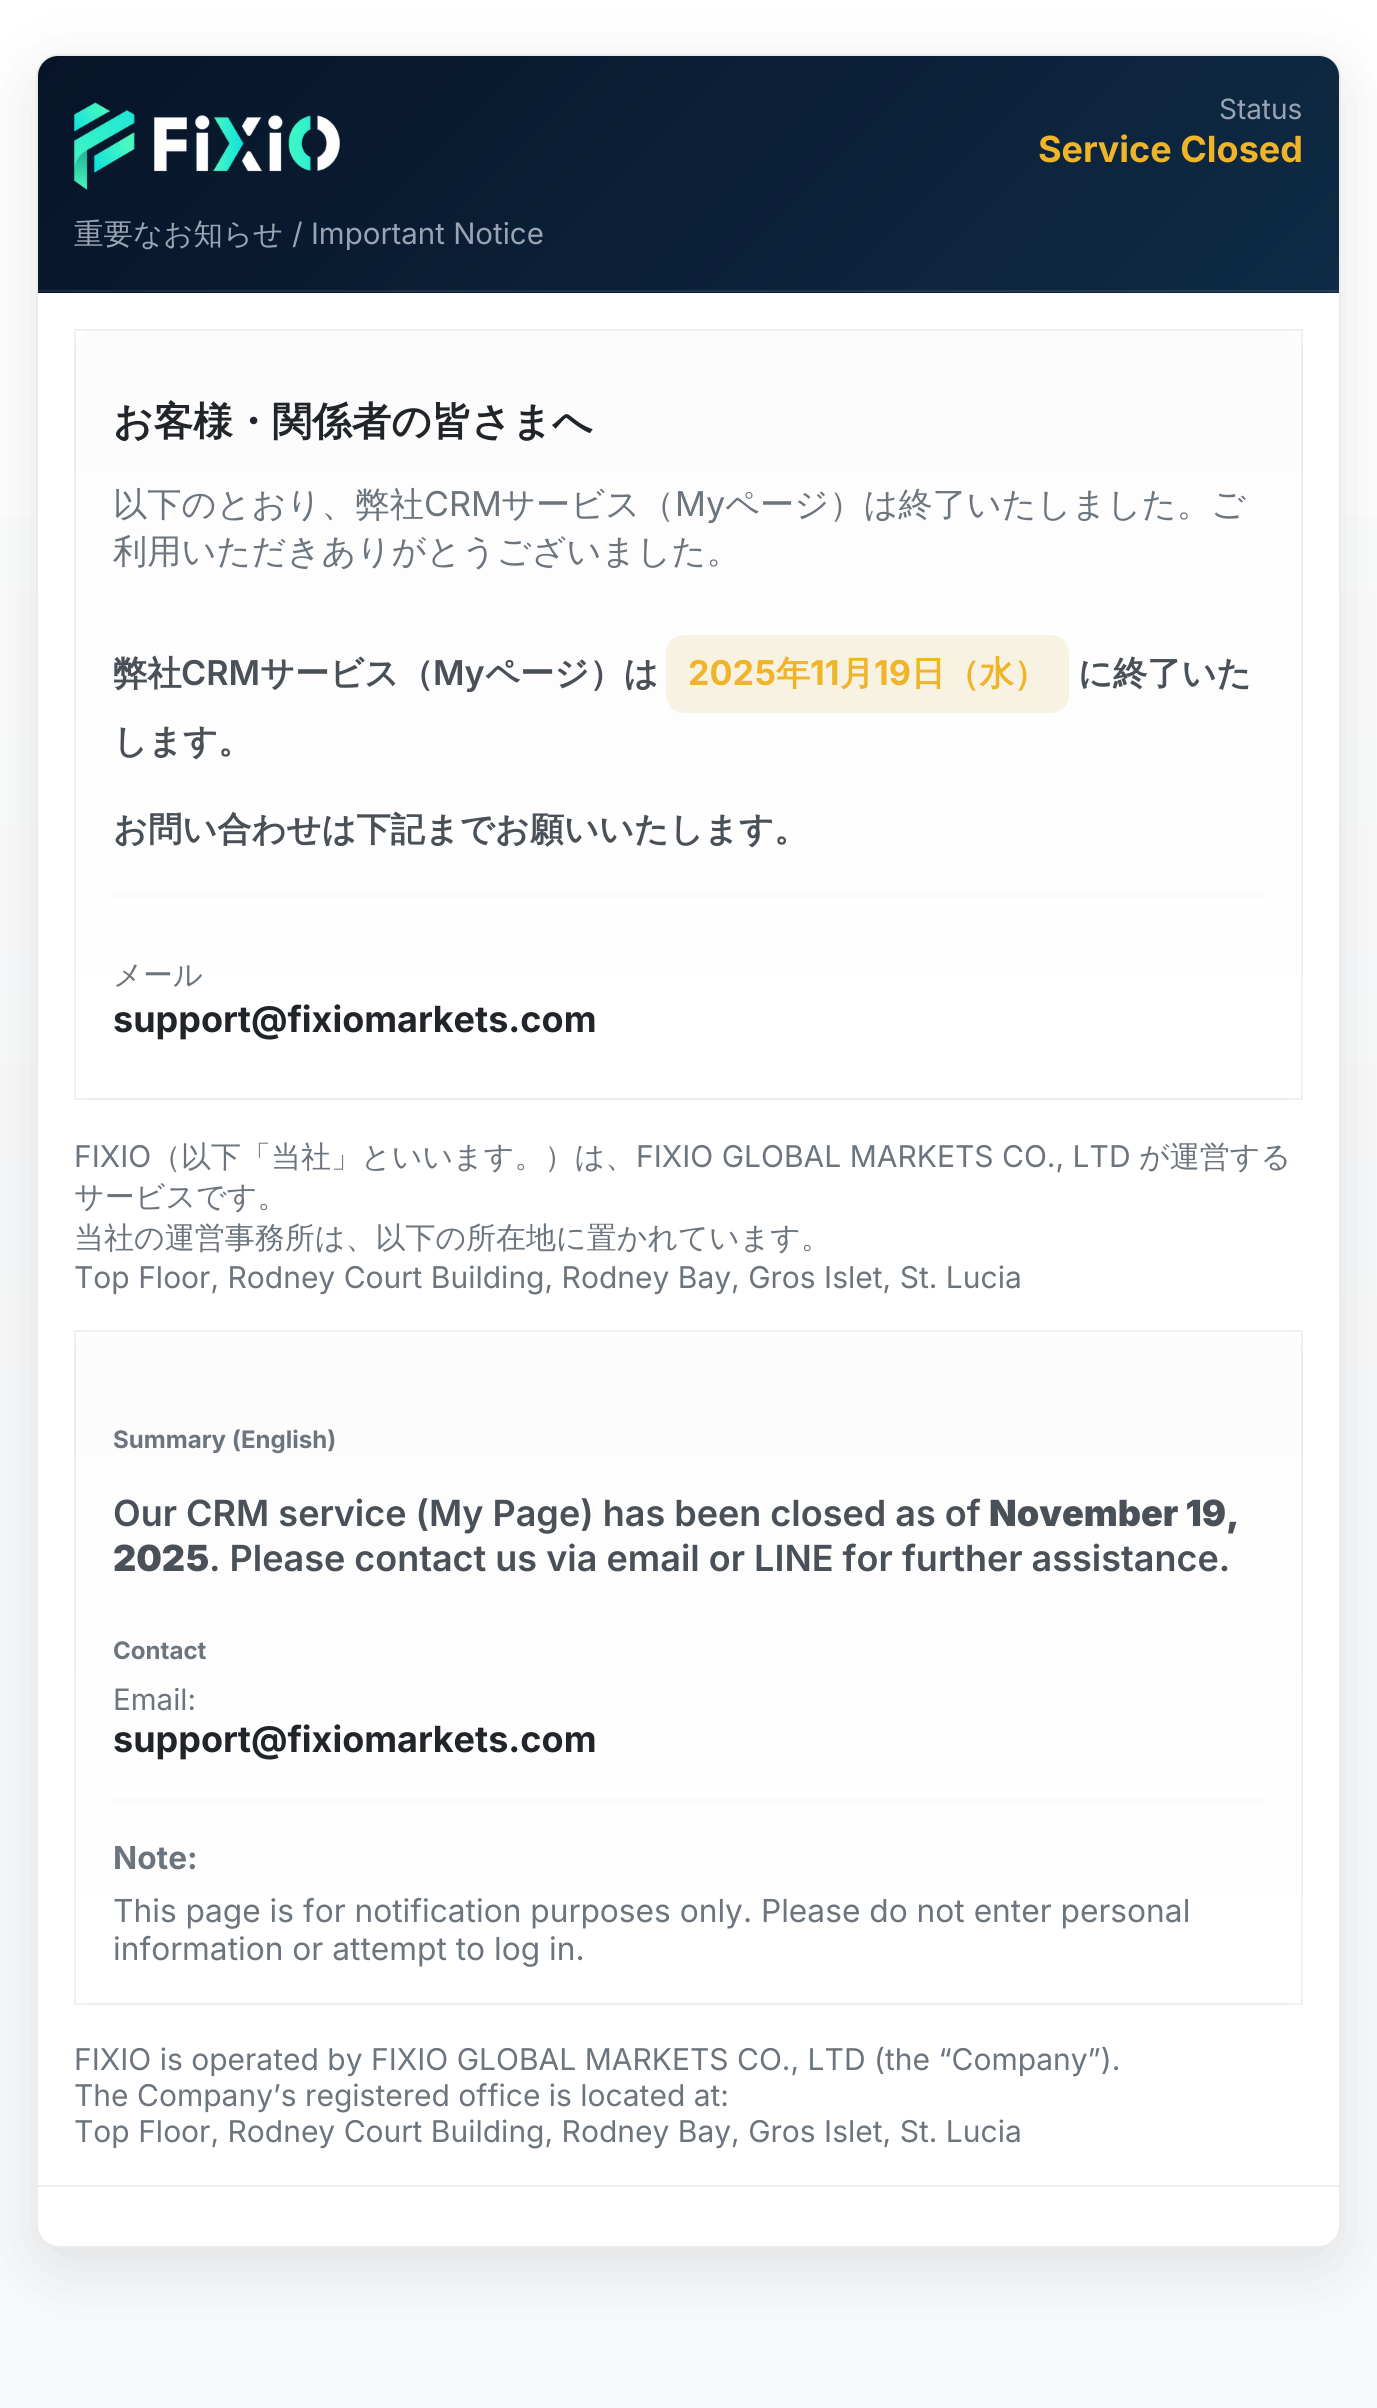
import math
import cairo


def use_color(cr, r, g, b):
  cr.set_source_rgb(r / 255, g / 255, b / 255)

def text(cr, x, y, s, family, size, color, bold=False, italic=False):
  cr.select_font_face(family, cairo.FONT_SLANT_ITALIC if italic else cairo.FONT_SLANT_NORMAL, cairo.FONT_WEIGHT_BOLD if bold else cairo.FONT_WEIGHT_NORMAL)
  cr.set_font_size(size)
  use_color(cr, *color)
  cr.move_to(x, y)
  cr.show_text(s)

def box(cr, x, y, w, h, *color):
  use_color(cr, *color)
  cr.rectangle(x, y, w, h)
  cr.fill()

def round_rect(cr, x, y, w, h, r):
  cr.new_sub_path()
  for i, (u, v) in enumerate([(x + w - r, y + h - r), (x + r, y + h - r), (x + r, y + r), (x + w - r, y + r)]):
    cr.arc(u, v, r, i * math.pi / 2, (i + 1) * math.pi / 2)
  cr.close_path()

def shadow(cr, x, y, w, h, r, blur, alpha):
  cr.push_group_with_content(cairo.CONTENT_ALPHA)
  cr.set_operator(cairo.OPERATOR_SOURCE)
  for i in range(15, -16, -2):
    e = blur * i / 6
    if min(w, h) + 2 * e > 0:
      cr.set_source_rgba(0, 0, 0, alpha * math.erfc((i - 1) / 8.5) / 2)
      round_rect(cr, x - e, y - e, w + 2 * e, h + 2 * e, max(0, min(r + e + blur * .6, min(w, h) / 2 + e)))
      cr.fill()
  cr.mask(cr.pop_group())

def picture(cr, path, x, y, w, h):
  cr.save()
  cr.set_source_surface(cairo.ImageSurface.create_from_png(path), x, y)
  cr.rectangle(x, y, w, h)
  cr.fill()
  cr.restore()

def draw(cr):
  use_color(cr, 255, 255, 255)
  cr.paint()
  gradient = cairo.LinearGradient(688, 0, 689, 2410)
  gradient.add_color_stop_rgba(0, 1, 1, 1, 1)
  gradient.add_color_stop_rgba(0.6, 0.973, 0.976, 0.98, 1)
  cr.set_source(gradient)
  cr.rectangle(0, 516, 1377, 1892)
  cr.fill()
  use_color(cr, 0, 0, 0)
  shadow(cr, 36, 72, 1305, 2194, 23, 34, 0.1)
  use_color(cr, 255, 255, 255)
  round_rect(cr, 36, 54, 1305, 2194, 23)
  cr.fill()
  round_rect(cr, 37, 55, 1303, 2192, 22)
  cr.set_source_rgba(0, 0, 0, 0.08)
  cr.stroke()
  gradient = cairo.LinearGradient(305, -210, 1072, 557)
  gradient.add_color_stop_rgba(0, 0.027, 0.078, 0.157, 1)
  gradient.add_color_stop_rgba(1, 0.059, 0.169, 0.271, 1)
  cr.set_source(gradient)
  cr.new_path()
  cr.move_to(58, 56)
  cr.line_to(1319, 56)
  cr.curve_to(1330, 56, 1339, 65, 1339, 76)
  cr.line_to(1339, 290)
  cr.line_to(38, 290)
  cr.line_to(38, 76)
  cr.curve_to(38, 65, 47, 56, 58, 56)
  cr.close_path()
  cr.fill()
  gradient = cairo.LinearGradient(305, 24, 1072, 791)
  gradient.add_color_stop_rgba(0, 0.027, 0.078, 0.157, 1)
  gradient.add_color_stop_rgba(1, 0.059, 0.169, 0.271, 1)
  cr.set_source(gradient)
  cr.rectangle(38, 292, 1301, 1)
  cr.fill()
  gradient = cairo.LinearGradient(305, 24, 1072, 791)
  gradient.add_color_stop_rgba(0, 0.125, 0.173, 0.243, 1)
  gradient.add_color_stop_rgba(1, 0.153, 0.251, 0.345, 1)
  cr.set_source(gradient)
  cr.rectangle(38, 290, 1301, 2)
  cr.fill()
  picture(cr, "img_01.png", 74, 102, 266, 88)
  cr.save()
  round_rect(cr, 74, 329, 1229, 771, 23)
  cr.clip()
  gradient = cairo.LinearGradient(689, 331, 689, 1098)
  gradient.add_color_stop_rgba(0, 0.988, 0.988, 0.992, 1)
  gradient.add_color_stop_rgba(1, 1, 1, 1, 1)
  cr.set_source(gradient)
  cr.rectangle(74, 331, 1229, 767)
  cr.fill()
  gradient = cairo.LinearGradient(689, 1098, 689, 1865)
  gradient.add_color_stop_rgba(0, 0.988, 0.988, 0.992, 1)
  gradient.add_color_stop_rgba(1, 1, 1, 1, 1)
  cr.set_source(gradient)
  cr.rectangle(87, 1098, 1203, 2)
  cr.fill()
  cr.restore()
  cr.rectangle(75, 330, 1227, 769)
  cr.set_source_rgba(0, 0, 0, 0.06)
  cr.stroke()
  use_color(cr, 248, 242, 226)
  round_rect(cr, 666, 635, 403, 78, 18)
  cr.fill()
  box(cr, 113, 893, 1152, 5, 250, 250, 250)
  cr.save()
  round_rect(cr, 74, 1330, 1229, 675, 23)
  cr.clip()
  gradient = cairo.LinearGradient(689, 1332, 689, 2003)
  gradient.add_color_stop_rgba(0, 0.988, 0.988, 0.992, 1)
  gradient.add_color_stop_rgba(1, 1, 1, 1, 1)
  cr.set_source(gradient)
  cr.rectangle(74, 1332, 1229, 671)
  cr.fill()
  gradient = cairo.LinearGradient(689, 2003, 689, 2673)
  gradient.add_color_stop_rgba(0, 0.988, 0.988, 0.992, 1)
  gradient.add_color_stop_rgba(1, 1, 1, 1, 1)
  cr.set_source(gradient)
  cr.rectangle(87, 2003, 1203, 2)
  cr.fill()
  cr.restore()
  cr.rectangle(75, 1331, 1227, 673)
  cr.set_source_rgba(0, 0, 0, 0.06)
  cr.stroke()
  box(cr, 113, 1798, 1152, 5, 250, 250, 250)
  box(cr, 38, 2185, 1301, 2, 240, 240, 240)
  text(cr, 1219, 119, "Status", "Inter", 28, (152, 163, 179))
  text(cr, 1038, 162, "Service Closed", "Inter", 36, (240, 180, 41), bold=True)
  text(cr, 74, 244, "重要なお知らせ", "WenQuanYi Zen Hei Medium", 29.5, (152, 163, 179))
  text(cr, 292, 244, "/ Important Notice", "Inter", 29.5, (152, 163, 179))
  text(cr, 113, 435, "お客様・関係者の皆さまへ", "WenQuanYi Zen Hei", 39.6, (33, 37, 41), bold=True)
  text(cr, 113, 516, "以下のとおり、弊社", "WenQuanYi Zen Hei Medium", 34.2, (108, 117, 125))
  text(cr, 424, 516, "CRM", "Inter", 34.2, (108, 117, 125))
  text(cr, 501, 516, "サービス（", "WenQuanYi Zen Hei Medium", 34.2, (108, 117, 125))
  text(cr, 675, 516, "My", "Inter", 34.2, (108, 117, 125))
  text(cr, 725, 516, "ページ）は終了いたしました。ご", "WenQuanYi Zen Hei Medium", 34.2, (108, 117, 125))
  text(cr, 113, 563, "利用いただきありがとうございました。", "WenQuanYi Zen Hei Medium", 34.2, (108, 117, 125))
  text(cr, 113, 685, "弊社", "WenQuanYi Zen Hei", 34.2, (73, 80, 87), bold=True)
  text(cr, 181, 685, "CRM", "Inter SemiBold", 34.2, (73, 80, 87))
  text(cr, 260, 685, "サービス（", "WenQuanYi Zen Hei", 34.2, (73, 80, 87), bold=True)
  text(cr, 433, 685, "My", "Inter SemiBold", 34.2, (73, 80, 87))
  text(cr, 485, 685, "ページ）は", "WenQuanYi Zen Hei", 34.2, (73, 80, 87), bold=True)
  text(cr, 688, 685, "2025", "Inter", 34.2, (240, 180, 41), bold=True)
  text(cr, 776, 685, "年", "WenQuanYi Zen Hei", 34.2, (240, 180, 41), bold=True)
  text(cr, 810, 685, "11", "Inter", 34.2, (240, 180, 41), bold=True)
  text(cr, 840, 685, "月", "WenQuanYi Zen Hei", 34.2, (240, 180, 41), bold=True)
  text(cr, 874, 685, "19", "Inter", 34.2, (240, 180, 41), bold=True)
  text(cr, 911, 685, "日（水）", "WenQuanYi Zen Hei", 34.2, (240, 180, 41), bold=True)
  text(cr, 1078, 685, "に終了いた", "WenQuanYi Zen Hei", 34.2, (73, 80, 87), bold=True)
  text(cr, 113, 753, "します。", "WenQuanYi Zen Hei", 34.2, (73, 80, 87), bold=True)
  text(cr, 113, 841, "お問い合わせは下記までお願いいたします。", "WenQuanYi Zen Hei", 34.2, (73, 80, 87), bold=True)
  text(cr, 113, 985, "メール", "WenQuanYi Zen Hei Medium", 29.5, (108, 117, 125))
  text(cr, 113, 1032, "support@fixiomarkets.com", "Inter", 36, (33, 37, 41), bold=True)
  text(cr, 74, 1167, "FIXIO", "Inter", 30, (108, 117, 125))
  text(cr, 151, 1167, "（以下「当社」といいます。）は、", "WenQuanYi Zen Hei Medium", 30, (108, 117, 125))
  text(cr, 636, 1167, "FIXIO GLOBAL MARKETS CO., LTD", "Inter", 30, (108, 117, 125))
  text(cr, 1139, 1167, "が運営する", "WenQuanYi Zen Hei Medium", 30, (108, 117, 125))
  text(cr, 74, 1207, "サービスです。", "WenQuanYi Zen Hei Medium", 30, (108, 117, 125))
  text(cr, 74, 1248, "当社の運営事務所は、以下の所在地に置かれています。", "WenQuanYi Zen Hei Medium", 30, (108, 117, 125))
  text(cr, 74, 1288, "Top Floor, Rodney Court Building, Rodney Bay, Gros Islet, St. Lucia", "Inter", 30, (108, 117, 125))
  text(cr, 113, 1448, "Summary (English)", "Inter", 24.1, (108, 117, 125), bold=True)
  text(cr, 113, 1526, "Our CRM service (My Page) has been closed as of", "Inter SemiBold", 36, (73, 80, 87))
  text(cr, 989, 1526, "November 19,", "Inter Black", 36, (73, 80, 87))
  text(cr, 113, 1571, "2025", "Inter Black", 36, (73, 80, 87))
  text(cr, 209, 1571, ". Please contact us via email or LINE for further assistance.", "Inter SemiBold", 36, (73, 80, 87))
  text(cr, 113, 1659, "Contact", "Inter", 24.1, (108, 117, 125), bold=True)
  text(cr, 113, 1710, "Email:", "Inter", 29.5, (108, 117, 125))
  text(cr, 113, 1752, "support@fixiomarkets.com", "Inter", 36, (33, 37, 41), bold=True)
  text(cr, 113, 1869, "Note:", "Inter", 31.7, (108, 117, 125), bold=True)
  text(cr, 113, 1922, "This page is for notification purposes only. Please do not enter personal", "Inter", 31.7, (108, 117, 125))
  text(cr, 113, 1960, "information or attempt to log in.", "Inter", 31.7, (108, 117, 125))
  text(cr, 74, 2070, "FIXIO is operated by FIXIO GLOBAL MARKETS CO., LTD (the “Company”).", "Inter", 30, (108, 117, 125))
  text(cr, 74, 2106, "The Company’s registered office is located at:", "Inter", 30, (108, 117, 125))
  text(cr, 74, 2142, "Top Floor, Rodney Court Building, Rodney Bay, Gros Islet, St. Lucia", "Inter", 30, (108, 117, 125))


surface = cairo.ImageSurface(cairo.FORMAT_RGB24, 1377, 2408)
cr = cairo.Context(surface)
options = cairo.FontOptions()
options.set_hint_metrics(cairo.HINT_METRICS_OFF)
options.set_hint_style(cairo.HINT_STYLE_NONE)
cr.set_font_options(options)
cr.set_miter_limit(4)
draw(cr)
surface.write_to_png("out.png")
